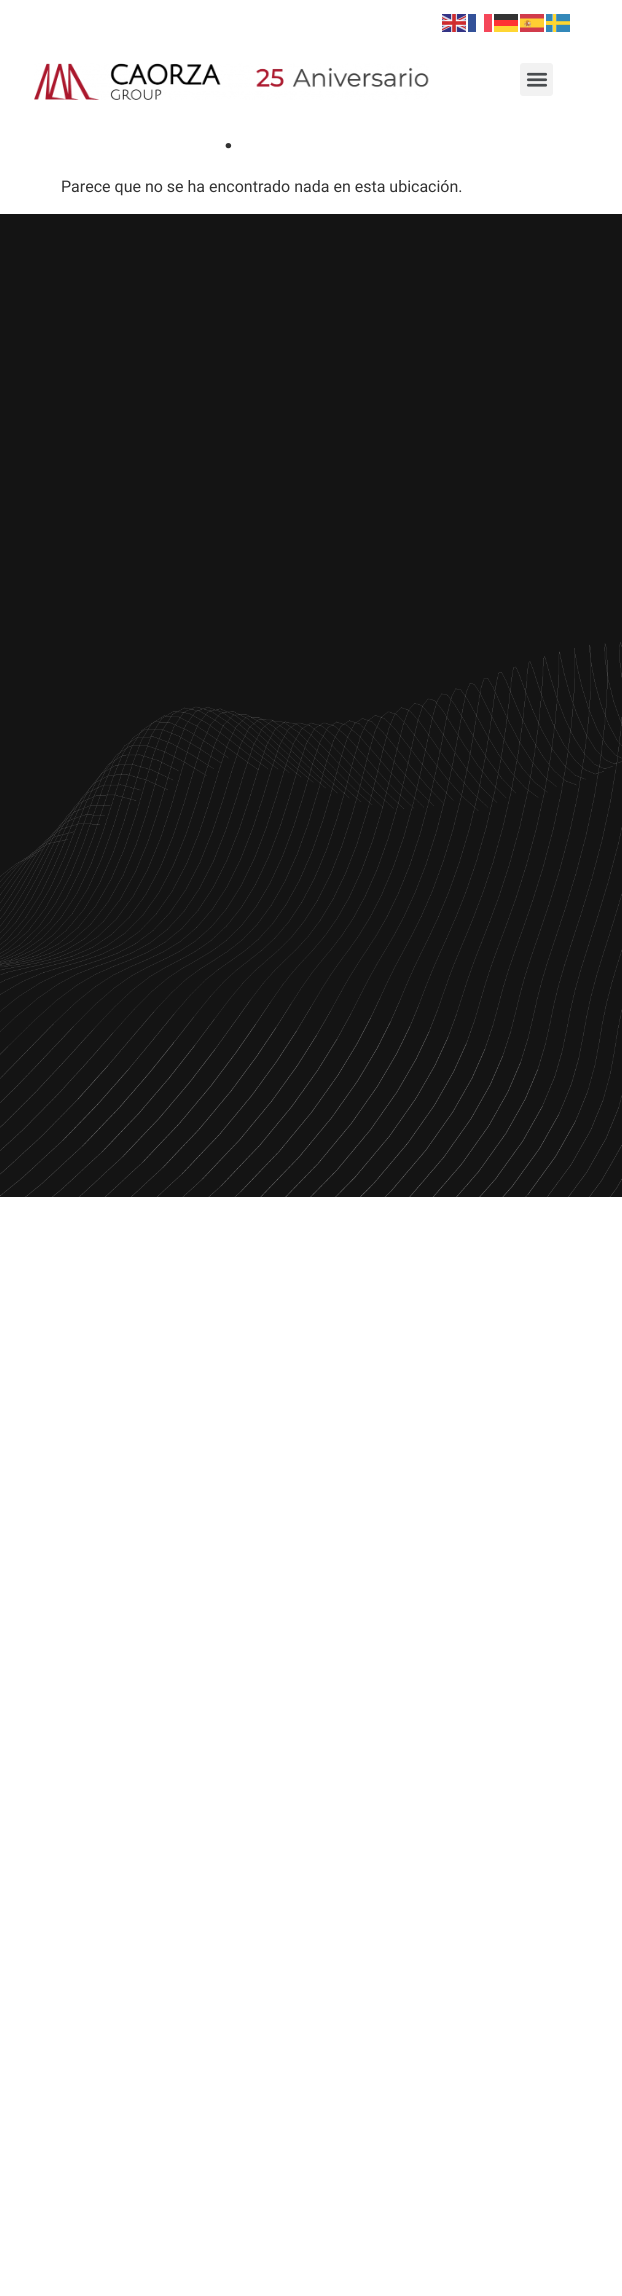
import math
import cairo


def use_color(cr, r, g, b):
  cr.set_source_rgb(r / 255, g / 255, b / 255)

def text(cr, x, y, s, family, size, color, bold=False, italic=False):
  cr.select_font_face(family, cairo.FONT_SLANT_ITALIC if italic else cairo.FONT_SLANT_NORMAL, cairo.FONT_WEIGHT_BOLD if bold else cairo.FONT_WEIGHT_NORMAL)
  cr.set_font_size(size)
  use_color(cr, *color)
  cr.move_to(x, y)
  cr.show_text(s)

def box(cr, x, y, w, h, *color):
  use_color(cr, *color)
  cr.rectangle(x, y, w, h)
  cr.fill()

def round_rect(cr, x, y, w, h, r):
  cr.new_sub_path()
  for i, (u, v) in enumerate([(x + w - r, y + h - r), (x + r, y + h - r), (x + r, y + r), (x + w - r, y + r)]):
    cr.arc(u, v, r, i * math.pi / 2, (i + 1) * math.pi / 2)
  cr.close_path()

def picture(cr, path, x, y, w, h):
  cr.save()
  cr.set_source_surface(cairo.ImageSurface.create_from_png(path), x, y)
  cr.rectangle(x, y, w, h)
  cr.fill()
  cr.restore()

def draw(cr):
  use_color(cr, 255, 255, 255)
  cr.paint()
  picture(cr, "img_01.png", 442, 14, 24, 18)
  box(cr, 468, 14, 8, 18, 51, 81, 153)
  box(cr, 484, 14, 8, 18, 245, 70, 89)
  box(cr, 494, 14, 24, 6, 51, 51, 51)
  picture(cr, "img_02.png", 520, 14, 24, 18)
  picture(cr, "img_03.png", 546, 14, 24, 18)
  box(cr, 494, 20, 24, 6, 255, 51, 51)
  box(cr, 494, 26, 24, 6, 255, 214, 51)
  picture(cr, "img_04.png", 34, 63, 395, 37)
  use_color(cr, 242, 242, 242)
  round_rect(cr, 520, 63, 33, 33, 3)
  cr.fill()
  picture(cr, "img_05.png", 526, 72, 22, 15)
  box(cr, 0, 214, 622, 983, 20, 20, 20)
  picture(cr, "img_06.png", 0, 642, 622, 555)
  text(cr, 223, 148, ".", "Roboto Medium", 40, (51, 51, 51))
  text(cr, 61, 192, "Parece que no se ha encontrado nada en esta ubicación.", "Roboto", 16, (51, 51, 51))


surface = cairo.ImageSurface(cairo.FORMAT_RGB24, 622, 2296)
cr = cairo.Context(surface)
options = cairo.FontOptions()
options.set_hint_metrics(cairo.HINT_METRICS_OFF)
options.set_hint_style(cairo.HINT_STYLE_NONE)
cr.set_font_options(options)
cr.set_miter_limit(4)
draw(cr)
surface.write_to_png("out.png")
